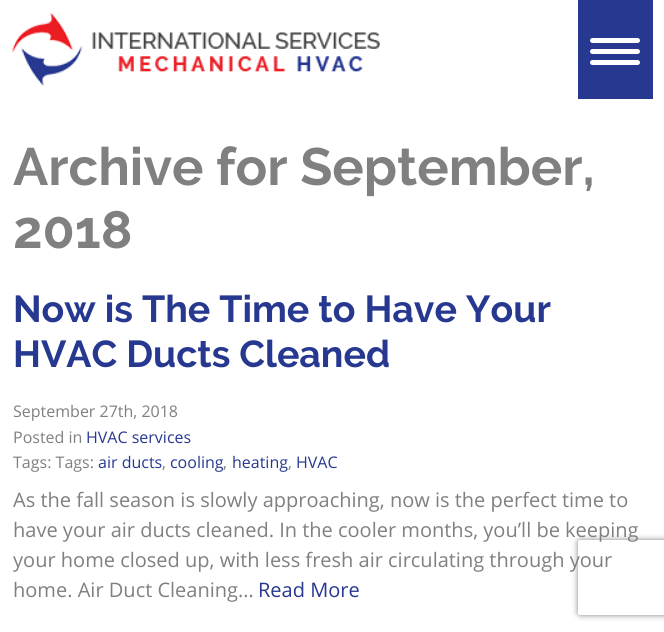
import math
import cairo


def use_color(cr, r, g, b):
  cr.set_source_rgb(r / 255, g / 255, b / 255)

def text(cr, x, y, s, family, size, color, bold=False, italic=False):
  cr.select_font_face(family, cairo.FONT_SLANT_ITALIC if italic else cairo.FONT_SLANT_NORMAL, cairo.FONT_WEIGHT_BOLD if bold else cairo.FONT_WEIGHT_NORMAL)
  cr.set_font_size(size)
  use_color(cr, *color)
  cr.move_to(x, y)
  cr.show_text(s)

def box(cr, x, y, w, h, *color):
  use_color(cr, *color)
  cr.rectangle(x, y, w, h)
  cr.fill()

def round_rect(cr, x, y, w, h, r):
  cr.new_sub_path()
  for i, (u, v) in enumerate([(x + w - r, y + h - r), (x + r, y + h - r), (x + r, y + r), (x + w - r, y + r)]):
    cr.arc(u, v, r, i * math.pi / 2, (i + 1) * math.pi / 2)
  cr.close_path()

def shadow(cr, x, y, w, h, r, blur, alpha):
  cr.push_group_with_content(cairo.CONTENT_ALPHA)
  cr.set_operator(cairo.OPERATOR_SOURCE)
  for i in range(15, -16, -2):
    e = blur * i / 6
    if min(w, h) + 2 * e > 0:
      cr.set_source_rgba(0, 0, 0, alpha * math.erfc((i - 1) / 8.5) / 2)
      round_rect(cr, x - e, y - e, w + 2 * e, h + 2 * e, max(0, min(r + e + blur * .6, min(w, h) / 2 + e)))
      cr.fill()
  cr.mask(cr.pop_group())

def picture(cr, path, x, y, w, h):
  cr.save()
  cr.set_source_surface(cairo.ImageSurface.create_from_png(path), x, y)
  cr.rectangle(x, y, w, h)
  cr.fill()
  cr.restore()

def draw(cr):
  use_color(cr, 255, 255, 255)
  cr.paint()
  picture(cr, "img_01.png", 12, 12, 368, 74)
  box(cr, 578, 0, 75, 99, 39, 56, 144)
  use_color(cr, 255, 255, 255)
  round_rect(cr, 590, 38, 50, 5, 2.5)
  cr.fill()
  round_rect(cr, 590, 49, 50, 5, 2.5)
  cr.fill()
  round_rect(cr, 590, 60, 50, 5, 2.5)
  cr.fill()
  cr.save()
  cr.set_fill_rule(cairo.FILL_RULE_EVEN_ODD)
  cr.new_path()
  cr.move_to(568, 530)
  cr.line_to(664, 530)
  cr.line_to(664, 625)
  cr.line_to(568, 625)
  cr.close_path()
  cr.move_to(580.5, 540)
  cr.line_to(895.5, 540)
  cr.curve_to(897, 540, 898, 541, 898, 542.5)
  cr.line_to(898, 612.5)
  cr.curve_to(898, 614, 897, 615, 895.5, 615)
  cr.line_to(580.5, 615)
  cr.curve_to(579, 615, 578, 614, 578, 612.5)
  cr.line_to(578, 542.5)
  cr.curve_to(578, 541, 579, 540, 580.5, 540)
  cr.close_path()
  cr.clip()
  use_color(cr, 128, 128, 128)
  shadow(cr, 578, 540, 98, 75, 2.5, 3, 1)
  cr.restore()
  text(cr, 13, 185, "Archive for September,", "Raleway", 52.5, (128, 128, 128), bold=True)
  text(cr, 13, 248, "2018", "Raleway", 52.5, (128, 128, 128), bold=True)
  text(cr, 13, 322, "Now is The Time to Have Your", "Raleway", 37.5, (39, 56, 144), bold=True)
  text(cr, 13, 367, "HVAC Ducts Cleaned", "Raleway", 37.5, (39, 56, 144), bold=True)
  text(cr, 13, 417, "September 27th, 2018", "Open Sans", 16, (128, 128, 128))
  text(cr, 13, 443, "Posted in", "Open Sans", 16, (128, 128, 128))
  text(cr, 86, 443, "HVAC services", "Open Sans", 16, (39, 56, 144))
  text(cr, 13, 468, "Tags: Tags:", "Open Sans", 16, (128, 128, 128))
  text(cr, 98, 468, "air ducts", "Open Sans", 16, (39, 56, 144))
  text(cr, 162, 468, ",", "Open Sans", 16, (128, 128, 128))
  text(cr, 170, 468, "cooling", "Open Sans", 16, (39, 56, 144))
  text(cr, 223, 468, ",", "Open Sans", 16, (128, 128, 128))
  text(cr, 232, 468, "heating", "Open Sans", 16, (39, 56, 144))
  text(cr, 288, 468, ",", "Open Sans", 16, (128, 128, 128))
  text(cr, 296, 468, "HVAC", "Open Sans", 16, (39, 56, 144))
  text(cr, 13, 507, "As the fall season is slowly approaching, now is the perfect time to", "Open Sans", 20, (128, 128, 128))
  text(cr, 13, 537, "have your air ducts cleaned. In the cooler months, you’ll be keeping", "Open Sans", 20, (128, 128, 128))
  text(cr, 13, 567, "your home closed up, with less fresh air circulating through your", "Open Sans", 20, (128, 128, 128))
  text(cr, 13, 597, "home. Air Duct Cleaning…", "Open Sans", 20, (128, 128, 128))
  text(cr, 258, 597, "Read More", "Open Sans", 20, (39, 56, 144))


surface = cairo.ImageSurface(cairo.FORMAT_RGB24, 664, 632)
cr = cairo.Context(surface)
options = cairo.FontOptions()
options.set_hint_metrics(cairo.HINT_METRICS_OFF)
options.set_hint_style(cairo.HINT_STYLE_NONE)
cr.set_font_options(options)
cr.set_miter_limit(4)
draw(cr)
surface.write_to_png("out.png")
